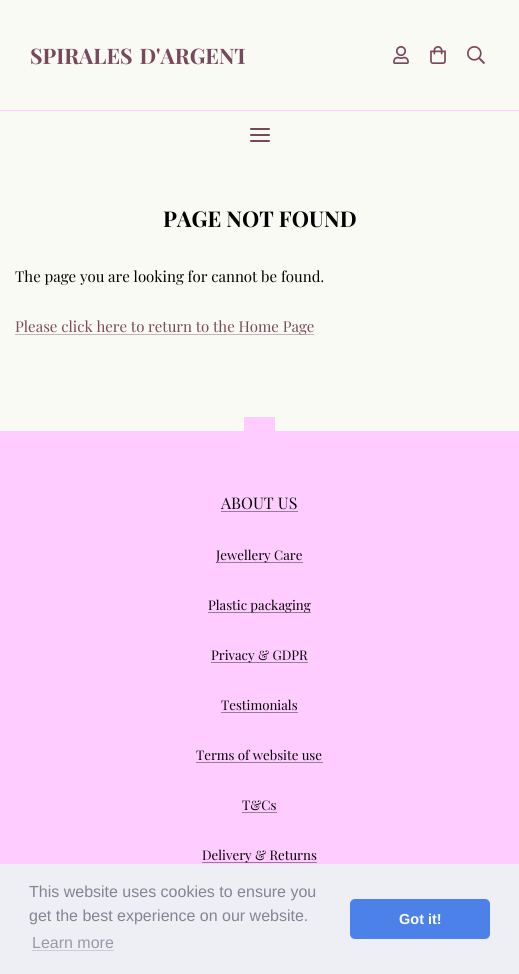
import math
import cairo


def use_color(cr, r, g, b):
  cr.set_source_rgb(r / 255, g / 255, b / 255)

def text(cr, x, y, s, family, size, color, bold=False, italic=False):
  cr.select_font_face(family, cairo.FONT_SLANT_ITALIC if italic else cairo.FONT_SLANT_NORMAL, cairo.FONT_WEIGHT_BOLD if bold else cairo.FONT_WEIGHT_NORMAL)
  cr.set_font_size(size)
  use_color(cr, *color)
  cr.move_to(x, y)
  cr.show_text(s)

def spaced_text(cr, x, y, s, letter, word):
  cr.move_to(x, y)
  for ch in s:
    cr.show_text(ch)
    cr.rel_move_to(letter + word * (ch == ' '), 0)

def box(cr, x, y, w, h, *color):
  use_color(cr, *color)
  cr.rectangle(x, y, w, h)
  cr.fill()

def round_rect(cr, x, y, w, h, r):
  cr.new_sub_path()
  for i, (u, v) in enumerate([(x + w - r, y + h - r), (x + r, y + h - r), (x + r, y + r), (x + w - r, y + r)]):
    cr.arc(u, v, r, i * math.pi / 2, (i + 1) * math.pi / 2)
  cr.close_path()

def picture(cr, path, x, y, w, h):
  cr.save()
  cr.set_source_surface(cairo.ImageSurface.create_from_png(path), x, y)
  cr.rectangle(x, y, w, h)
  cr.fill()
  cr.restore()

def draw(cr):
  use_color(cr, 250, 250, 245)
  cr.paint()
  picture(cr, "img_01.png", 393, 46, 16, 18)
  picture(cr, "img_02.png", 430, 46, 16, 18)
  picture(cr, "img_03.png", 467, 46, 18, 18)
  box(cr, 0, 110, 519, 1, 255, 204, 255)
  use_color(cr, 120, 72, 93)
  round_rect(cr, 250, 134, 20, 2, 1)
  cr.fill()
  round_rect(cr, 250, 128, 20, 2, 1)
  cr.fill()
  round_rect(cr, 250, 140, 20, 2, 1)
  cr.fill()
  box(cr, 15, 334, 299, 1, 198, 179, 184)
  box(cr, 0, 431, 519, 433, 255, 204, 255)
  box(cr, 244, 417, 31, 14, 255, 204, 255)
  box(cr, 221, 511, 77, 1, 153, 122, 153)
  box(cr, 216, 562, 87, 1, 153, 122, 153)
  box(cr, 208, 612, 103, 1, 153, 122, 153)
  box(cr, 211, 662, 97, 1, 153, 122, 153)
  box(cr, 221, 712, 77, 1, 153, 122, 153)
  box(cr, 196, 762, 127, 1, 153, 122, 153)
  box(cr, 242, 812, 35, 1, 153, 122, 153)
  box(cr, 202, 862, 115, 1, 153, 122, 153)
  box(cr, 0, 864, 519, 110, 237, 239, 245)
  box(cr, 32, 950, 82, 1, 203, 205, 213)
  use_color(cr, 75, 129, 232)
  round_rect(cr, 350, 899, 140, 40, 5)
  cr.fill()
  cr.save()
  cr.rectangle(30, 30, 215, 50)
  cr.clip()
  cr.select_font_face("Playfair Display", cairo.FONT_SLANT_NORMAL, cairo.FONT_WEIGHT_BOLD)
  cr.set_font_size(21.4)
  use_color(cr, 120, 72, 93)
  spaced_text(cr, 30, 64, "SPIRALES D'ARGENT", 0, 2)
  cr.restore()
  text(cr, 163, 227, "PAGE NOT FOUND", "Playfair Display", 21.75, (0, 0, 0), bold=True)
  text(cr, 15, 282, "The page you are looking for cannot be found.", "Playfair Display", 15, (0, 0, 0))
  text(cr, 15, 332, "Please click here to return to the Home Page", "Playfair Display", 15, (120, 72, 93))
  text(cr, 221, 509, "ABOUT US", "Playfair Display", 16, (0, 0, 0))
  text(cr, 216, 560, "Jewellery Care", "Playfair Display", 13.25, (0, 0, 0))
  text(cr, 208, 610, "Plastic packaging", "Playfair Display", 13.25, (0, 0, 0))
  text(cr, 211, 660, "Privacy & GDPR", "Playfair Display", 13.25, (0, 0, 0))
  text(cr, 221, 710, "Testimonials", "Playfair Display", 13.25, (0, 0, 0))
  text(cr, 196, 760, "Terms of website use", "Playfair Display", 13.25, (0, 0, 0))
  text(cr, 242, 810, "T&Cs", "Playfair Display", 13.25, (0, 0, 0))
  text(cr, 202, 860, "Delivery & Returns", "Playfair Display", 13.25, (0, 0, 0))
  text(cr, 29, 897, "This website uses cookies to ensure you", "Liberation Sans", 16, (131, 131, 145))
  text(cr, 29, 921, "get the best experience on our website.", "Liberation Sans", 16, (131, 131, 145))
  text(cr, 32, 948, "Learn more", "Liberation Sans", 16, (152, 153, 165))
  text(cr, 399, 924, "Got it!", "Liberation Sans", 14.5, (255, 255, 255), bold=True)


surface = cairo.ImageSurface(cairo.FORMAT_RGB24, 519, 974)
cr = cairo.Context(surface)
options = cairo.FontOptions()
options.set_hint_metrics(cairo.HINT_METRICS_OFF)
options.set_hint_style(cairo.HINT_STYLE_NONE)
cr.set_font_options(options)
cr.set_miter_limit(4)
draw(cr)
surface.write_to_png("out.png")
